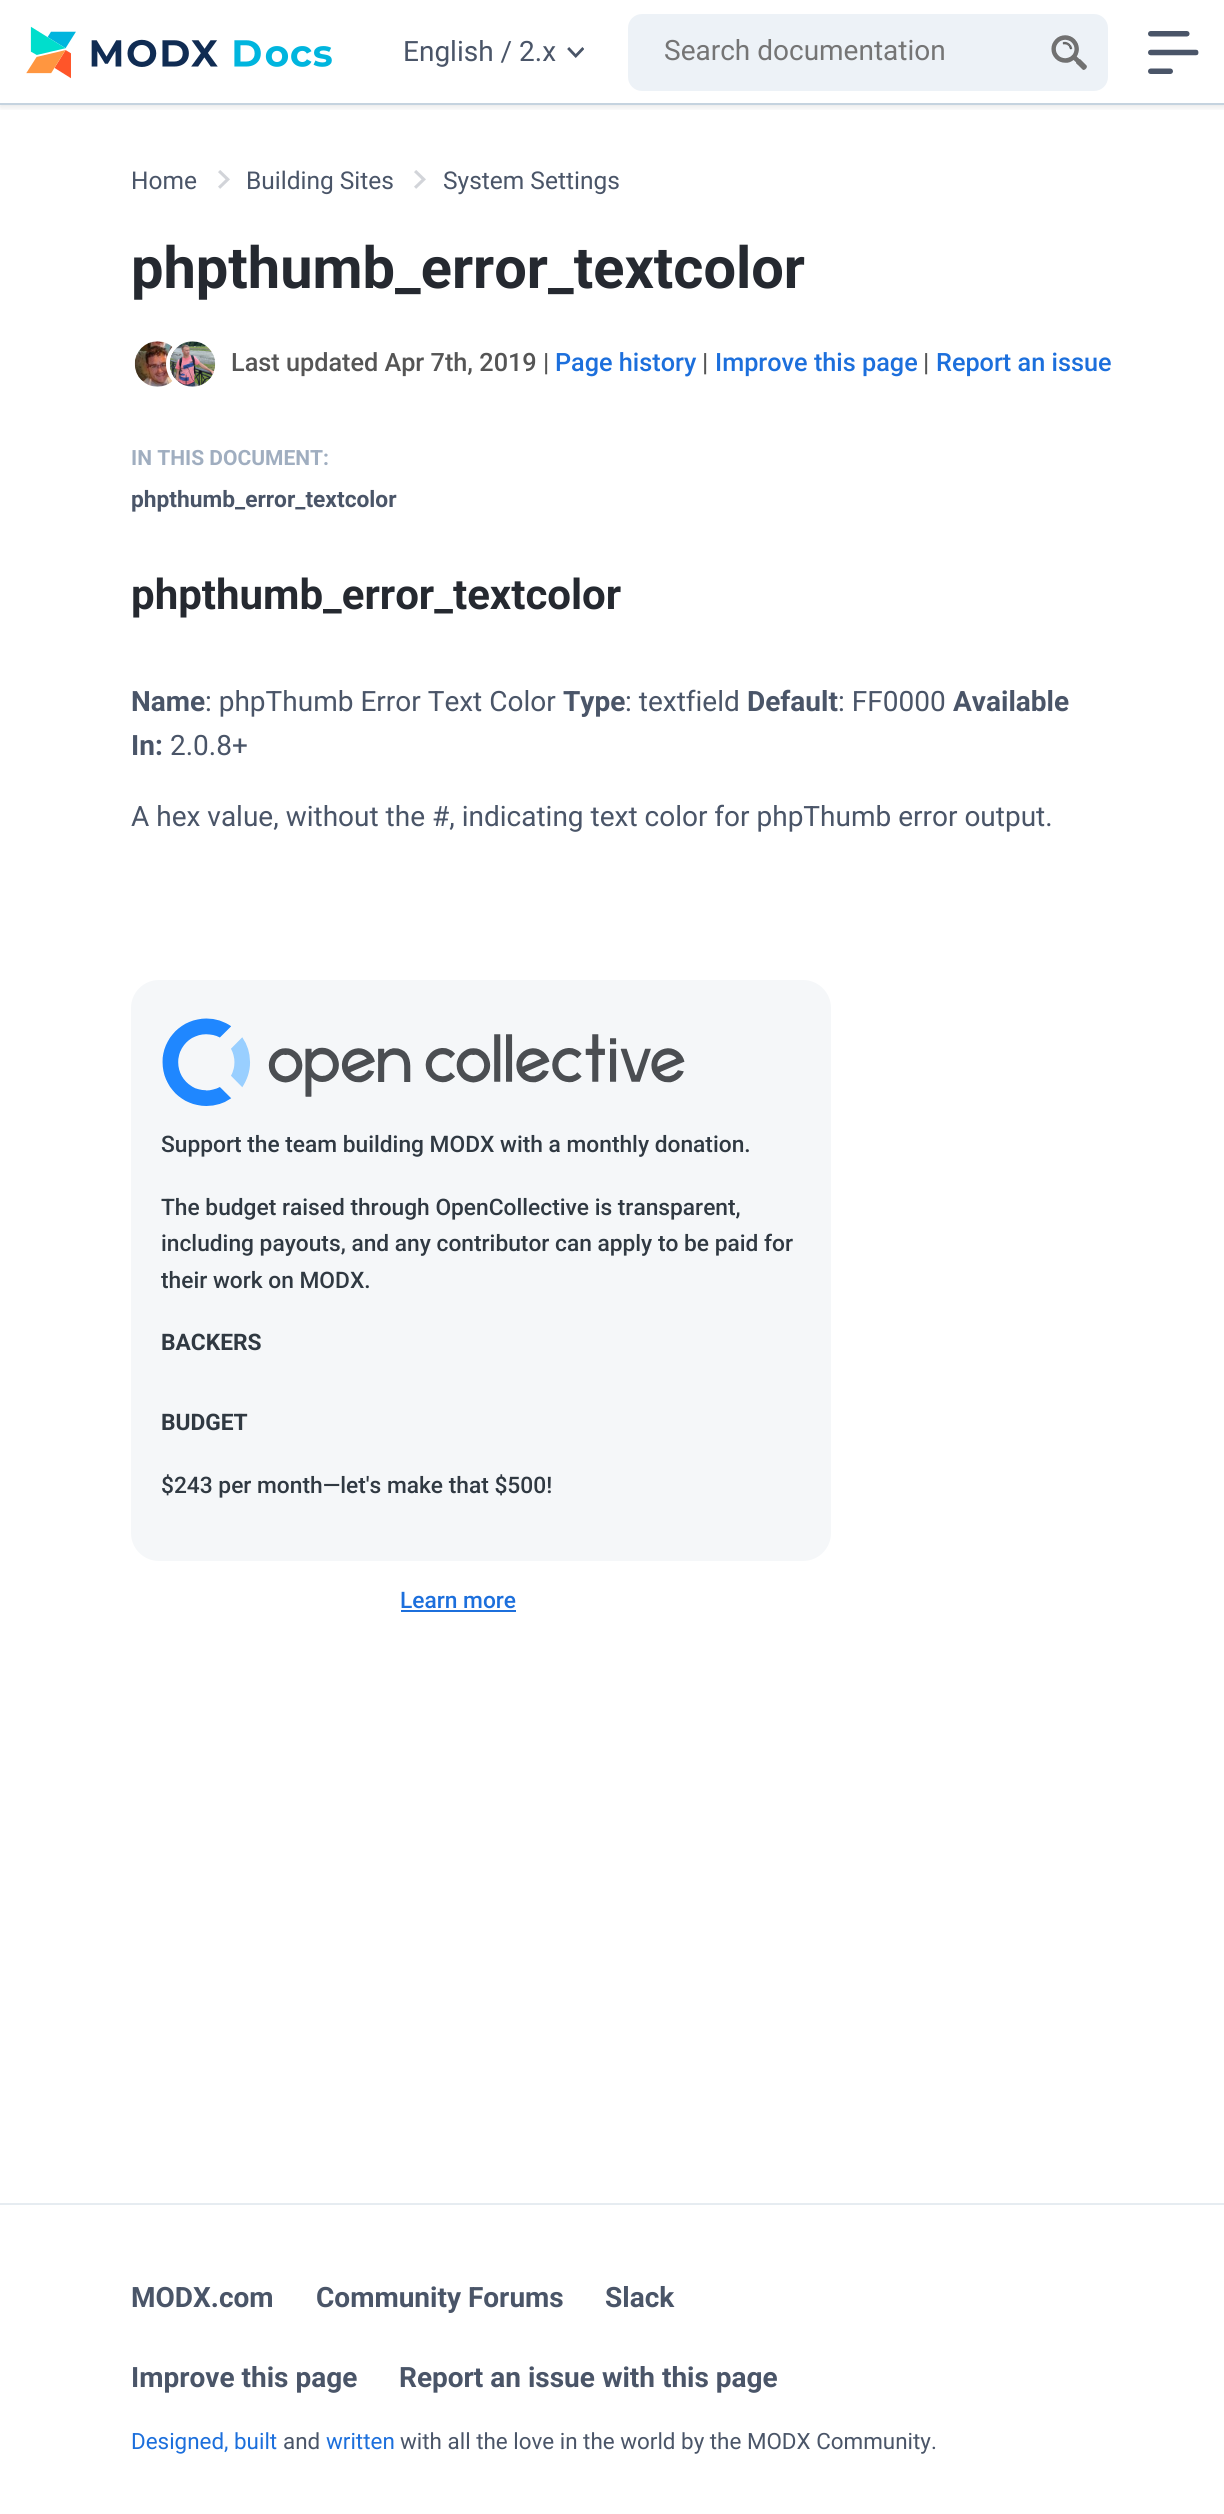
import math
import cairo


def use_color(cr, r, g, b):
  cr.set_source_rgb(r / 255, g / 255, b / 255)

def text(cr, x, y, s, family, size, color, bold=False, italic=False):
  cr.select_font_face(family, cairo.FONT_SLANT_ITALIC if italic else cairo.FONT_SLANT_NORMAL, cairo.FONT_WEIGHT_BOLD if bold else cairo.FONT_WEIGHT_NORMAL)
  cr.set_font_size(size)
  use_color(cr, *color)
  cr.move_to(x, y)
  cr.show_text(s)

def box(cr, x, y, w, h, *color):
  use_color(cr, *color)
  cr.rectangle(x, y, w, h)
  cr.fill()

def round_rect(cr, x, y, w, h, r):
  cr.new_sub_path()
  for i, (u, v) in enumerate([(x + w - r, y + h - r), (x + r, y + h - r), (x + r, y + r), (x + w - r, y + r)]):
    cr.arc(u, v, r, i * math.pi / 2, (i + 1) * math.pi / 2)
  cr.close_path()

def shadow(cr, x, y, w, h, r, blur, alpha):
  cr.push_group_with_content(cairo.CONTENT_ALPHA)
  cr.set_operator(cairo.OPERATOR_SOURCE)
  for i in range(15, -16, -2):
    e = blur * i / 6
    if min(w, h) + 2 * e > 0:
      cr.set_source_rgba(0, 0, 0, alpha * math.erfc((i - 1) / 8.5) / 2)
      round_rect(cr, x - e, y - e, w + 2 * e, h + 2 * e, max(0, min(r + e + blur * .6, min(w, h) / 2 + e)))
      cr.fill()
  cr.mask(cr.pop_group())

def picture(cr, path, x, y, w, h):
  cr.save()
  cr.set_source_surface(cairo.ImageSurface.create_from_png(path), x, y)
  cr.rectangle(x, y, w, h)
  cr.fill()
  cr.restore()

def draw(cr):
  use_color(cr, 255, 255, 255)
  cr.paint()
  cr.save()
  cr.rectangle(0, 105, 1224, 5)
  cr.clip()
  use_color(cr, 0, 0, 0)
  shadow(cr, 0, 2, 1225, 105, 0, 3.5, 0.1)
  cr.restore()
  box(cr, 0, 103, 1224, 2, 197, 211, 223)
  picture(cr, "img_01.png", 26, 26, 306, 53)
  picture(cr, "img_02.png", 567, 47, 17, 11)
  use_color(cr, 237, 242, 247)
  round_rect(cr, 628, 14, 480, 77, 14)
  cr.fill()
  picture(cr, "img_03.png", 1051, 35, 36, 35)
  picture(cr, "img_04.png", 1148, 31, 51, 43)
  picture(cr, "img_05.png", 218, 170, 12, 19)
  picture(cr, "img_05.png", 414, 170, 12, 19)
  picture(cr, "img_06.png", 134, 341, 42, 46)
  round_rect(cr, 168, 340, 49, 48, 24)
  use_color(cr, 255, 255, 255)
  cr.set_line_width(4)
  cr.stroke()
  picture(cr, "img_07.png", 169, 341, 47, 46)
  use_color(cr, 245, 247, 249)
  round_rect(cr, 131, 980, 700, 581, 28)
  cr.fill()
  picture(cr, "img_08.png", 162, 1018, 523, 88)
  box(cr, 401, 1610, 115, 2, 28, 111, 220)
  box(cr, 0, 2203, 1224, 2, 230, 236, 241)
  text(cr, 403, 61, "English / 2.x", "Roboto", 28, (74, 85, 104))
  text(cr, 664, 60, "Search documentation", "Roboto", 28, (117, 117, 117))
  text(cr, 131, 189, "Home", "Roboto", 24.5, (74, 85, 104))
  text(cr, 246, 189, "Building Sites", "Roboto", 24.5, (74, 85, 104))
  text(cr, 443, 189, "System Settings", "Roboto", 24.5, (74, 85, 104))
  text(cr, 131, 288, "phpthumb_error_textcolor", "Roboto", 57.75, (37, 41, 48), bold=True)
  text(cr, 231, 371, "Last updated Apr 7th, 2019 |", "Roboto Medium", 25.25, (85, 85, 85))
  text(cr, 555, 371, "Page history", "Roboto Medium", 25.25, (28, 111, 220))
  text(cr, 702, 371, "|", "Roboto Medium", 25.25, (85, 85, 85))
  text(cr, 715, 371, "Improve this page", "Roboto Medium", 25.25, (28, 111, 220))
  text(cr, 923, 371, "|", "Roboto Medium", 25.25, (85, 85, 85))
  text(cr, 936, 371, "Report an issue", "Roboto Medium", 25.25, (28, 111, 220))
  text(cr, 131, 465, "IN THIS DOCUMENT:", "Roboto", 21, (160, 174, 192), bold=True)
  text(cr, 131, 507, "phpthumb_error_textcolor", "Roboto", 22.75, (74, 85, 104), bold=True)
  text(cr, 131, 609, "phpthumb_error_textcolor", "Roboto", 42, (37, 41, 48), bold=True)
  text(cr, 131, 711, "Name", "Roboto", 28, (74, 85, 104), bold=True)
  text(cr, 205, 711, ": phpThumb Error Text Color", "Roboto", 28, (74, 85, 104))
  text(cr, 563, 711, "Type", "Roboto", 28, (74, 85, 104), bold=True)
  text(cr, 625, 711, ": textfield", "Roboto", 28, (74, 85, 104))
  text(cr, 747, 711, "Default", "Roboto", 28, (74, 85, 104), bold=True)
  text(cr, 838, 711, ": FF0000", "Roboto", 28, (74, 85, 104))
  text(cr, 953, 711, "Available", "Roboto", 28, (74, 85, 104), bold=True)
  text(cr, 131, 755, "In:", "Roboto", 28, (74, 85, 104), bold=True)
  text(cr, 170, 755, "2.0.8+", "Roboto", 28, (74, 85, 104))
  text(cr, 131, 826, "A hex value, without the #, indicating text color for phpThumb error output.", "Roboto", 28, (74, 85, 104))
  text(cr, 161, 1152, "Support the team building MODX with a monthly donation.", "Roboto Medium", 22.75, (48, 57, 66))
  text(cr, 161, 1215, "The budget raised through OpenCollective is transparent,", "Roboto Medium", 22.75, (48, 57, 66))
  text(cr, 161, 1251, "including payouts, and any contributor can apply to be paid for", "Roboto Medium", 22.75, (48, 57, 66))
  text(cr, 161, 1288, "their work on MODX.", "Roboto Medium", 22.75, (48, 57, 66))
  text(cr, 161, 1350, "BACKERS", "Roboto", 22.75, (48, 57, 66), bold=True)
  text(cr, 161, 1430, "BUDGET", "Roboto", 22.75, (48, 57, 66), bold=True)
  text(cr, 161, 1493, "$243 per month—let's make that $500!", "Roboto Medium", 22.75, (48, 57, 66))
  text(cr, 400, 1608, "Learn more", "Roboto Medium", 22.75, (28, 111, 220))
  text(cr, 131, 2307, "MODX.com", "Roboto", 28, (74, 85, 104), bold=True)
  text(cr, 316, 2307, "Community Forums", "Roboto", 28, (74, 85, 104), bold=True)
  text(cr, 605, 2307, "Slack", "Roboto", 28, (74, 85, 104), bold=True)
  text(cr, 131, 2387, "Improve this page", "Roboto", 28, (74, 85, 104), bold=True)
  text(cr, 399, 2387, "Report an issue with this page", "Roboto", 28, (74, 85, 104), bold=True)
  text(cr, 131, 2449, "Designed, built", "Roboto", 22.4, (28, 111, 220))
  text(cr, 283, 2449, "and", "Roboto", 22.4, (74, 85, 104))
  text(cr, 326, 2449, "written", "Roboto", 22.4, (28, 111, 220))
  text(cr, 400, 2449, "with all the love in the world by the MODX Community.", "Roboto", 22.4, (74, 85, 104))


surface = cairo.ImageSurface(cairo.FORMAT_RGB24, 1224, 2514)
cr = cairo.Context(surface)
options = cairo.FontOptions()
options.set_hint_metrics(cairo.HINT_METRICS_OFF)
options.set_hint_style(cairo.HINT_STYLE_NONE)
cr.set_font_options(options)
cr.set_miter_limit(4)
draw(cr)
surface.write_to_png("out.png")
